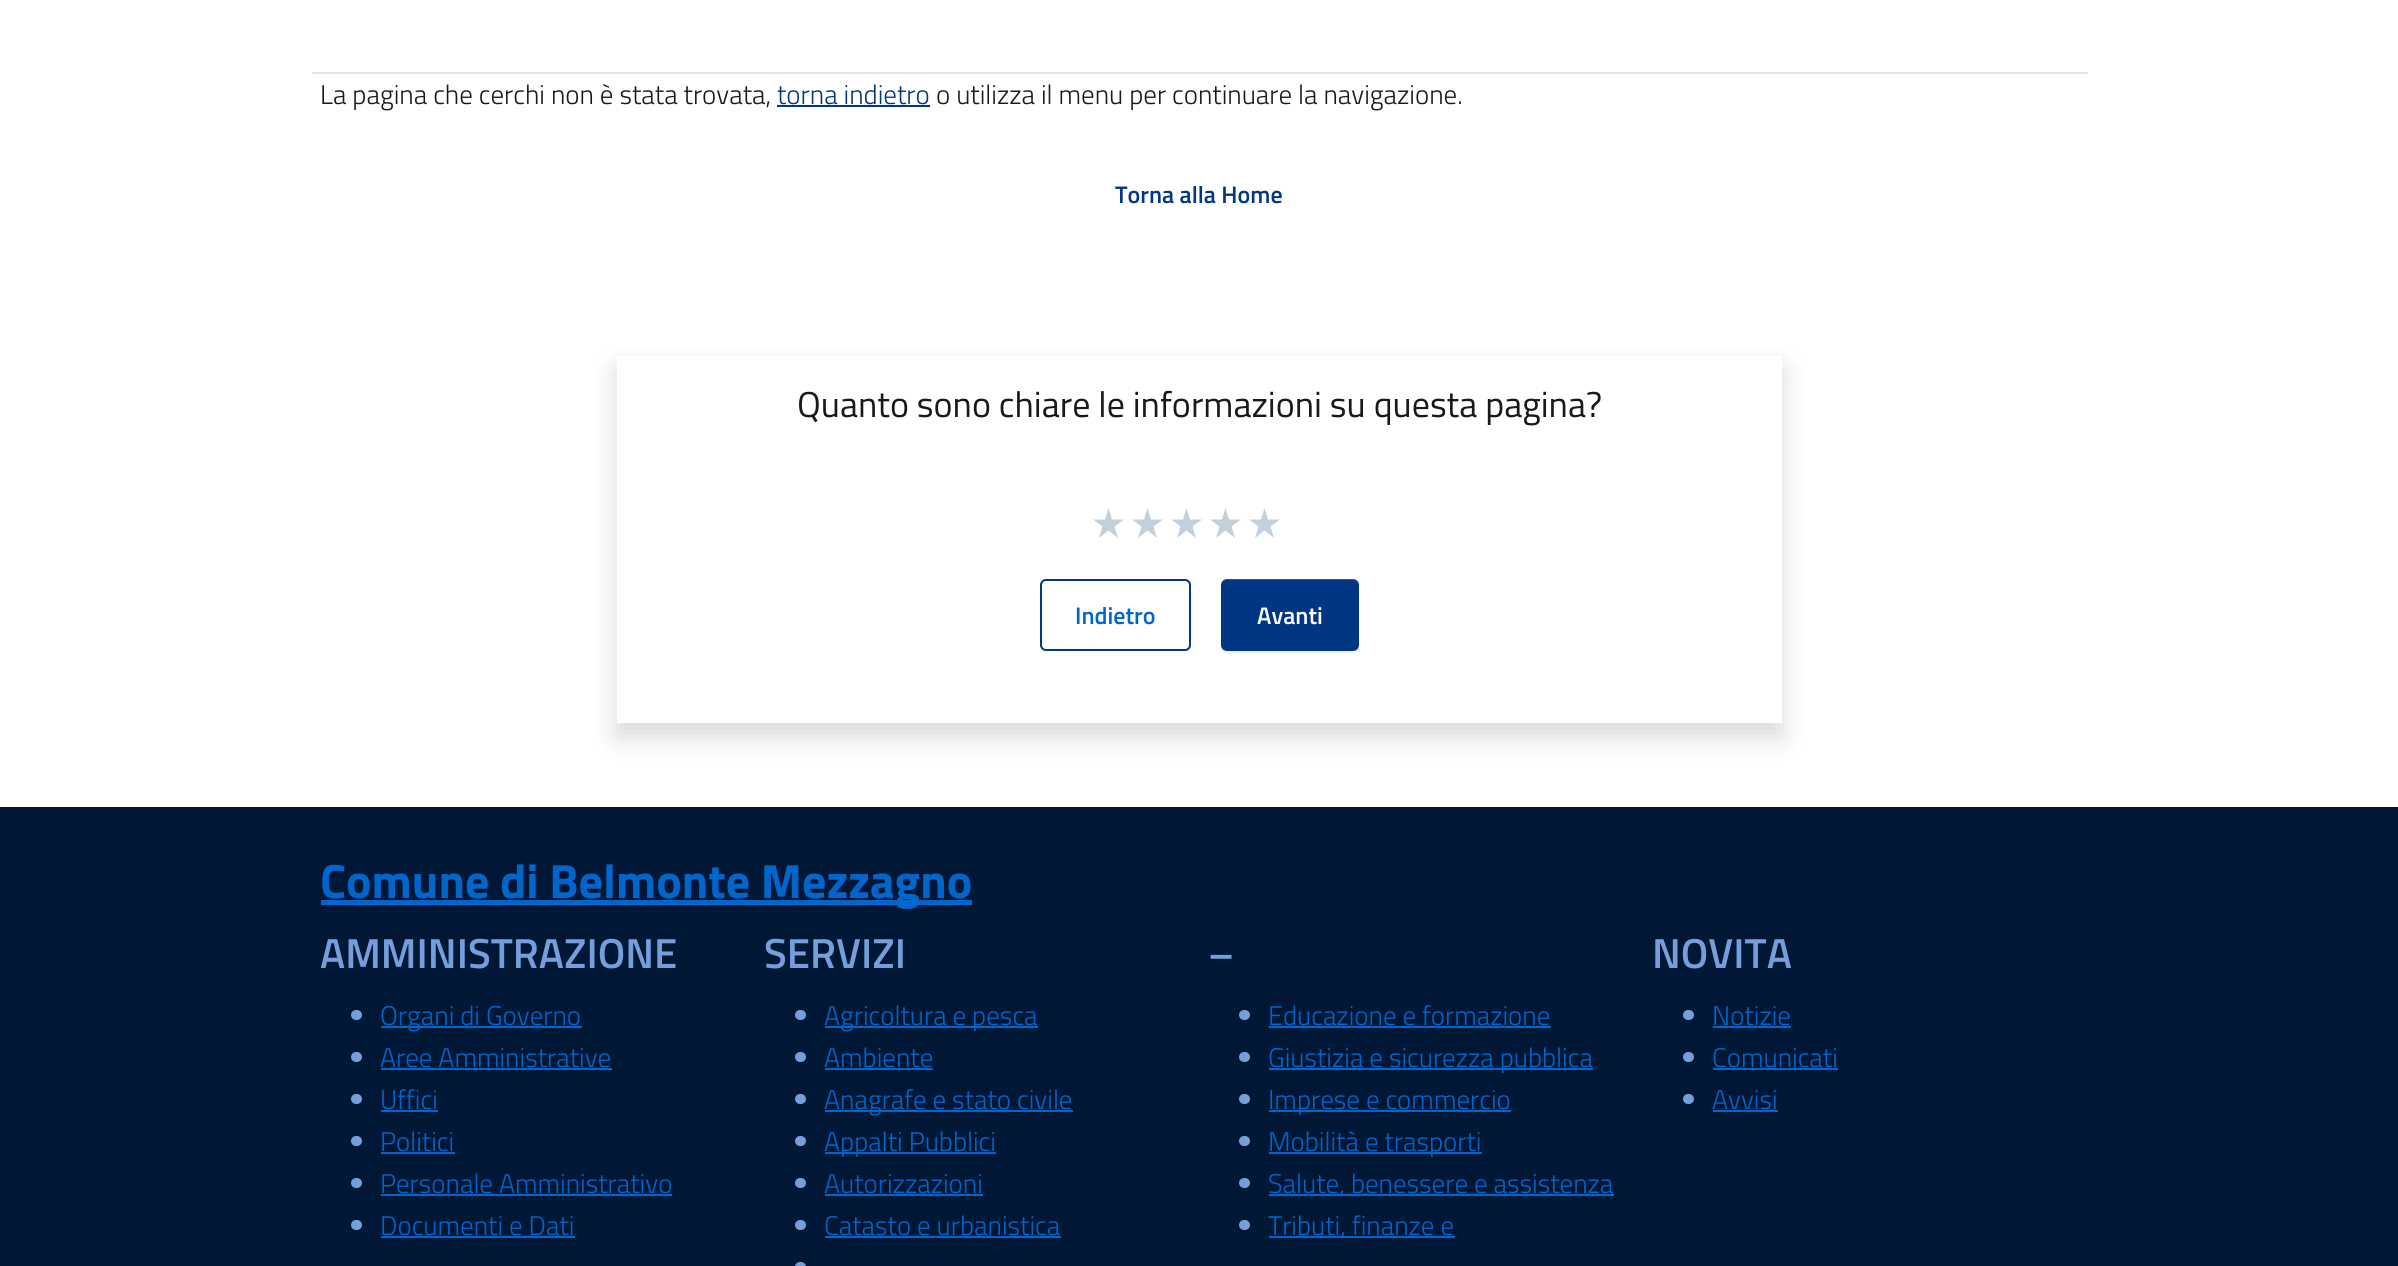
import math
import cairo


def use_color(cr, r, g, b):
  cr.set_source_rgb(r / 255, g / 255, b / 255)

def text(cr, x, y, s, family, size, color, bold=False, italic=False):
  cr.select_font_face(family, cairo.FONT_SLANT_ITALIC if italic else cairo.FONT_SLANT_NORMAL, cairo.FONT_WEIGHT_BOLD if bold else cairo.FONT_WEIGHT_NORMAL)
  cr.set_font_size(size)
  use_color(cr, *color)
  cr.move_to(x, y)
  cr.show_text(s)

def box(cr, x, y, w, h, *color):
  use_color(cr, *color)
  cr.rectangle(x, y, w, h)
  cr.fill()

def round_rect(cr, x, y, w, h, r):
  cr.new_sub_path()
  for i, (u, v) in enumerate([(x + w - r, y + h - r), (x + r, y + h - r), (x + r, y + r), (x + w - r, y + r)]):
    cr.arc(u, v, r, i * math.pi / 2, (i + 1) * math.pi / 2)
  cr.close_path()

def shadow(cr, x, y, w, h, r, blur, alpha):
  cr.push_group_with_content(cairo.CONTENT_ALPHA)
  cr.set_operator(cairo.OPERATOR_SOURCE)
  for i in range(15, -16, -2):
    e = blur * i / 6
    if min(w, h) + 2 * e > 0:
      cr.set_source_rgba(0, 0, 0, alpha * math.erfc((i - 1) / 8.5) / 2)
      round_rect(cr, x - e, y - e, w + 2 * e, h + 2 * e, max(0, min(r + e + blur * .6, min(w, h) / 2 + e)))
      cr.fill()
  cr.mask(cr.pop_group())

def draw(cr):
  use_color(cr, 255, 255, 255)
  cr.paint()
  box(cr, 312, 72, 1776, 2, 229, 229, 229)
  box(cr, 777, 105, 153, 2, 1, 55, 130)
  cr.save()
  cr.set_fill_rule(cairo.FILL_RULE_EVEN_ODD)
  cr.new_path()
  cr.move_to(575, 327)
  cr.line_to(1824, 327)
  cr.line_to(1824, 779)
  cr.line_to(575, 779)
  cr.close_path()
  cr.move_to(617, 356)
  cr.line_to(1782, 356)
  cr.line_to(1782, 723)
  cr.line_to(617, 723)
  cr.close_path()
  cr.clip()
  use_color(cr, 0, 0, 0)
  shadow(cr, 617, 369, 1165, 368, 0, 13.5, 0.15)
  cr.restore()
  use_color(cr, 195, 207, 219)
  cr.new_path()
  cr.move_to(1108.5, 508)
  cr.line_to(1105, 519.5)
  cr.line_to(1093, 519.5)
  cr.line_to(1102.5, 526.5)
  cr.line_to(1099, 538)
  cr.line_to(1108.5, 530.5)
  cr.line_to(1118, 538)
  cr.line_to(1114.5, 526.5)
  cr.line_to(1124, 519.5)
  cr.line_to(1112, 519.5)
  cr.close_path()
  cr.fill()
  cr.new_path()
  cr.move_to(1147.5, 508)
  cr.line_to(1144, 519.5)
  cr.line_to(1132, 519.5)
  cr.line_to(1141.5, 526.5)
  cr.line_to(1138, 538)
  cr.line_to(1147.5, 530.5)
  cr.line_to(1157, 538)
  cr.line_to(1153.5, 526.5)
  cr.line_to(1163, 519.5)
  cr.line_to(1151, 519.5)
  cr.close_path()
  cr.fill()
  cr.new_path()
  cr.move_to(1186.5, 508)
  cr.line_to(1183, 519.5)
  cr.line_to(1171, 519.5)
  cr.line_to(1180.5, 526.5)
  cr.line_to(1177, 538)
  cr.line_to(1186.5, 530.5)
  cr.line_to(1196, 538)
  cr.line_to(1192.5, 526.5)
  cr.line_to(1202, 519.5)
  cr.line_to(1190, 519.5)
  cr.close_path()
  cr.fill()
  cr.new_path()
  cr.move_to(1225.5, 508)
  cr.line_to(1222, 519.5)
  cr.line_to(1210, 519.5)
  cr.line_to(1219.5, 526.5)
  cr.line_to(1216, 538)
  cr.line_to(1225.5, 530.5)
  cr.line_to(1235, 538)
  cr.line_to(1231.5, 526.5)
  cr.line_to(1241, 519.5)
  cr.line_to(1229, 519.5)
  cr.close_path()
  cr.fill()
  cr.new_path()
  cr.move_to(1264.5, 508)
  cr.line_to(1261, 519.5)
  cr.line_to(1249, 519.5)
  cr.line_to(1258.5, 526.5)
  cr.line_to(1255, 538)
  cr.line_to(1264.5, 530.5)
  cr.line_to(1274, 538)
  cr.line_to(1270.5, 526.5)
  cr.line_to(1280, 519.5)
  cr.line_to(1268, 519.5)
  cr.close_path()
  cr.fill()
  round_rect(cr, 1041, 580, 149, 70, 5)
  use_color(cr, 1, 55, 130)
  cr.stroke()
  use_color(cr, 0, 0, 0)
  shadow(cr, 1221, 581, 138, 72, 6, 1, 0.07)
  use_color(cr, 1, 55, 130)
  round_rect(cr, 1221, 579, 138, 72, 6)
  cr.fill()
  cr.set_source_rgba(1, 1, 1, 0.15)
  cr.new_path()
  cr.move_to(1227, 580)
  cr.line_to(1353, 580)
  cr.curve_to(1356, 580, 1359, 583, 1359, 586)
  cr.curve_to(1359, 574, 1337, 579, 1332, 579)
  cr.line_to(1248, 579)
  cr.curve_to(1243, 579, 1221, 574, 1221, 586)
  cr.curve_to(1221, 583, 1224, 580, 1227, 580)
  cr.close_path()
  cr.fill()
  box(cr, 0, 807, 2398, 459, 0, 23, 54)
  box(cr, 321, 900, 651, 5, 0, 102, 204)
  use_color(cr, 116, 159, 219)
  round_rect(cr, 351, 1010, 11, 10, 5)
  cr.fill()
  box(cr, 381, 1026, 201, 2, 0, 102, 204)
  use_color(cr, 116, 159, 219)
  round_rect(cr, 351, 1052, 11, 10, 5)
  cr.fill()
  box(cr, 381, 1068, 231, 2, 0, 102, 204)
  use_color(cr, 116, 159, 219)
  round_rect(cr, 351, 1094, 11, 10, 5)
  cr.fill()
  box(cr, 381, 1110, 57, 2, 0, 102, 204)
  use_color(cr, 116, 159, 219)
  round_rect(cr, 351, 1136, 11, 10, 5)
  cr.fill()
  box(cr, 381, 1152, 74, 2, 0, 102, 204)
  use_color(cr, 116, 159, 219)
  round_rect(cr, 351, 1178, 11, 10, 5)
  cr.fill()
  box(cr, 381, 1194, 291, 2, 0, 102, 204)
  use_color(cr, 116, 159, 219)
  round_rect(cr, 351, 1220, 11, 10, 5)
  cr.fill()
  box(cr, 381, 1236, 194, 2, 0, 102, 204)
  use_color(cr, 116, 159, 219)
  round_rect(cr, 795, 1010, 11, 10, 5)
  cr.fill()
  box(cr, 825, 1026, 213, 2, 0, 102, 204)
  use_color(cr, 116, 159, 219)
  round_rect(cr, 795, 1052, 11, 10, 5)
  cr.fill()
  box(cr, 825, 1068, 108, 2, 0, 102, 204)
  use_color(cr, 116, 159, 219)
  round_rect(cr, 795, 1094, 11, 10, 5)
  cr.fill()
  box(cr, 825, 1110, 248, 2, 0, 102, 204)
  use_color(cr, 116, 159, 219)
  round_rect(cr, 795, 1136, 11, 10, 5)
  cr.fill()
  box(cr, 825, 1152, 171, 2, 0, 102, 204)
  use_color(cr, 116, 159, 219)
  round_rect(cr, 795, 1178, 11, 10, 5)
  cr.fill()
  box(cr, 825, 1194, 158, 2, 0, 102, 204)
  use_color(cr, 116, 159, 219)
  round_rect(cr, 795, 1220, 11, 10, 5)
  cr.fill()
  box(cr, 825, 1236, 236, 2, 0, 102, 204)
  use_color(cr, 116, 159, 219)
  round_rect(cr, 795, 1262, 11, 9, 5)
  cr.fill()
  round_rect(cr, 1239, 1010, 11, 10, 5)
  cr.fill()
  box(cr, 1269, 1026, 282, 2, 0, 102, 204)
  use_color(cr, 116, 159, 219)
  round_rect(cr, 1239, 1052, 11, 10, 5)
  cr.fill()
  box(cr, 1269, 1068, 324, 2, 0, 102, 204)
  use_color(cr, 116, 159, 219)
  round_rect(cr, 1239, 1094, 11, 10, 5)
  cr.fill()
  box(cr, 1269, 1110, 242, 2, 0, 102, 204)
  use_color(cr, 116, 159, 219)
  round_rect(cr, 1239, 1136, 11, 10, 5)
  cr.fill()
  box(cr, 1269, 1152, 213, 2, 0, 102, 204)
  use_color(cr, 116, 159, 219)
  round_rect(cr, 1239, 1178, 11, 10, 5)
  cr.fill()
  box(cr, 1269, 1194, 345, 2, 0, 102, 204)
  use_color(cr, 116, 159, 219)
  round_rect(cr, 1239, 1220, 11, 10, 5)
  cr.fill()
  box(cr, 1269, 1236, 186, 2, 0, 102, 204)
  use_color(cr, 116, 159, 219)
  round_rect(cr, 1683, 1010, 11, 10, 5)
  cr.fill()
  box(cr, 1713, 1026, 78, 2, 0, 102, 204)
  use_color(cr, 116, 159, 219)
  round_rect(cr, 1683, 1052, 11, 10, 5)
  cr.fill()
  box(cr, 1713, 1068, 125, 2, 0, 102, 204)
  use_color(cr, 116, 159, 219)
  round_rect(cr, 1683, 1094, 11, 10, 5)
  cr.fill()
  box(cr, 1713, 1110, 65, 2, 0, 102, 204)
  text(cr, 320, 104, "La pagina che cerchi non è stata trovata,", "Titillium Web Light", 27, (25, 25, 26))
  text(cr, 777, 104, "torna indietro", "Titillium Web Light", 27, (1, 55, 130))
  text(cr, 936, 104, "o utilizza il menu per continuare la navigazione.", "Titillium Web Light", 27, (25, 25, 26))
  text(cr, 1115, 203, "Torna alla Home", "Titillium Web SemiBold", 24, (1, 55, 130))
  text(cr, 797, 417, "Quanto sono chiare le informazioni su questa pagina?", "Titillium Web", 36, (25, 25, 26))
  text(cr, 1075, 624, "Indietro", "Titillium Web SemiBold", 24, (0, 102, 204))
  text(cr, 1257, 624, "Avanti", "Titillium Web SemiBold", 24, (255, 255, 255))
  text(cr, 320, 898, "Comune di Belmonte Mezzagno", "Titillium Web", 48, (0, 102, 204), bold=True)
  text(cr, 320, 968, "AMMINISTRAZIONE", "Titillium Web SemiBold", 42, (116, 159, 219))
  text(cr, 380, 1025, "Organi di Governo", "Titillium Web Light", 27, (0, 102, 204))
  text(cr, 380, 1067, "Aree Amministrative", "Titillium Web Light", 27, (0, 102, 204))
  text(cr, 380, 1109, "Uffici", "Titillium Web Light", 27, (0, 102, 204))
  text(cr, 380, 1151, "Politici", "Titillium Web Light", 27, (0, 102, 204))
  text(cr, 380, 1193, "Personale Amministrativo", "Titillium Web Light", 27, (0, 102, 204))
  text(cr, 380, 1235, "Documenti e Dati", "Titillium Web Light", 27, (0, 102, 204))
  text(cr, 764, 968, "SERVIZI", "Titillium Web SemiBold", 42, (116, 159, 219))
  text(cr, 824, 1025, "Agricoltura e pesca", "Titillium Web Light", 27, (0, 102, 204))
  text(cr, 824, 1067, "Ambiente", "Titillium Web Light", 27, (0, 102, 204))
  text(cr, 824, 1109, "Anagrafe e stato civile", "Titillium Web Light", 27, (0, 102, 204))
  text(cr, 824, 1151, "Appalti Pubblici", "Titillium Web Light", 27, (0, 102, 204))
  text(cr, 824, 1193, "Autorizzazioni", "Titillium Web Light", 27, (0, 102, 204))
  text(cr, 824, 1235, "Catasto e urbanistica", "Titillium Web Light", 27, (0, 102, 204))
  text(cr, 1208, 968, "–", "Titillium Web SemiBold", 42, (116, 159, 219))
  text(cr, 1268, 1025, "Educazione e formazione", "Titillium Web Light", 27, (0, 102, 204))
  text(cr, 1268, 1067, "Giustizia e sicurezza pubblica", "Titillium Web Light", 27, (0, 102, 204))
  text(cr, 1268, 1109, "Imprese e commercio", "Titillium Web Light", 27, (0, 102, 204))
  text(cr, 1268, 1151, "Mobilità e trasporti", "Titillium Web Light", 27, (0, 102, 204))
  text(cr, 1268, 1193, "Salute, benessere e assistenza", "Titillium Web Light", 27, (0, 102, 204))
  text(cr, 1268, 1235, "Tributi, finanze e", "Titillium Web Light", 27, (0, 102, 204))
  text(cr, 1652, 968, "NOVITA", "Titillium Web SemiBold", 42, (116, 159, 219))
  text(cr, 1712, 1025, "Notizie", "Titillium Web Light", 27, (0, 102, 204))
  text(cr, 1712, 1067, "Comunicati", "Titillium Web Light", 27, (0, 102, 204))
  text(cr, 1712, 1109, "Avvisi", "Titillium Web Light", 27, (0, 102, 204))


surface = cairo.ImageSurface(cairo.FORMAT_RGB24, 2398, 1266)
cr = cairo.Context(surface)
options = cairo.FontOptions()
options.set_hint_metrics(cairo.HINT_METRICS_OFF)
options.set_hint_style(cairo.HINT_STYLE_NONE)
cr.set_font_options(options)
cr.set_miter_limit(4)
draw(cr)
surface.write_to_png("out.png")
